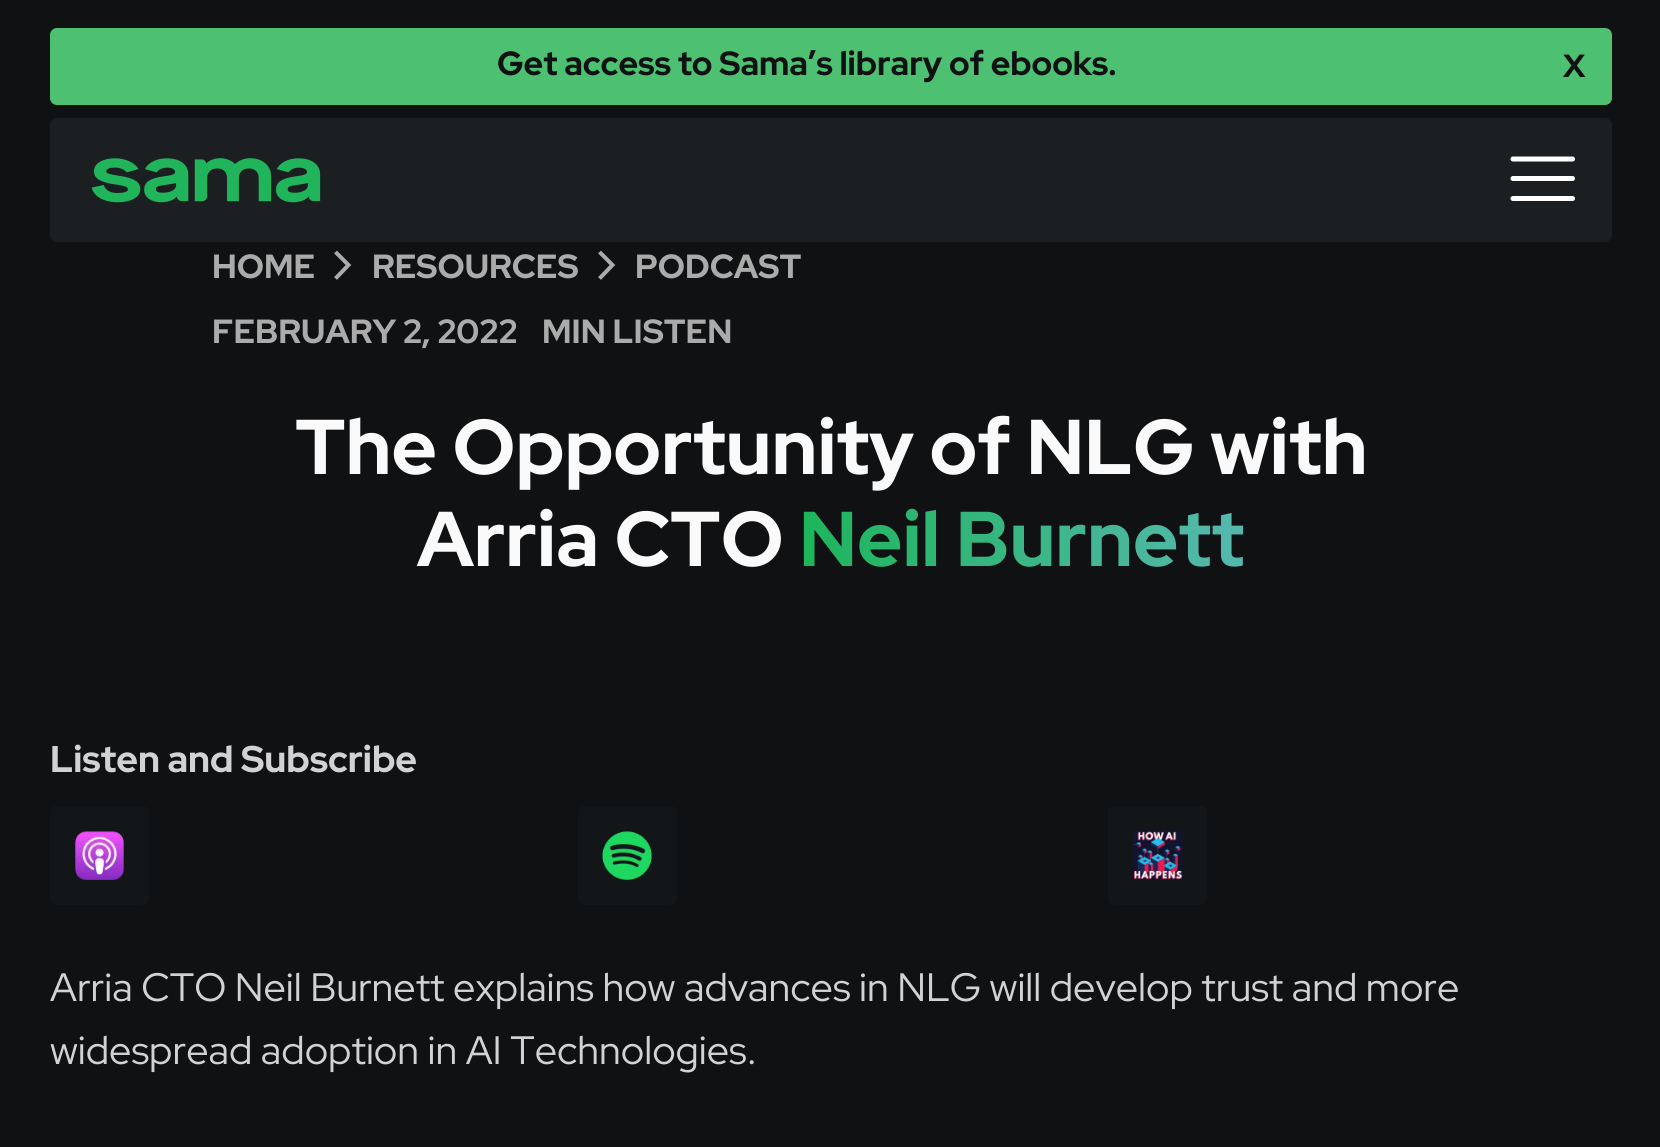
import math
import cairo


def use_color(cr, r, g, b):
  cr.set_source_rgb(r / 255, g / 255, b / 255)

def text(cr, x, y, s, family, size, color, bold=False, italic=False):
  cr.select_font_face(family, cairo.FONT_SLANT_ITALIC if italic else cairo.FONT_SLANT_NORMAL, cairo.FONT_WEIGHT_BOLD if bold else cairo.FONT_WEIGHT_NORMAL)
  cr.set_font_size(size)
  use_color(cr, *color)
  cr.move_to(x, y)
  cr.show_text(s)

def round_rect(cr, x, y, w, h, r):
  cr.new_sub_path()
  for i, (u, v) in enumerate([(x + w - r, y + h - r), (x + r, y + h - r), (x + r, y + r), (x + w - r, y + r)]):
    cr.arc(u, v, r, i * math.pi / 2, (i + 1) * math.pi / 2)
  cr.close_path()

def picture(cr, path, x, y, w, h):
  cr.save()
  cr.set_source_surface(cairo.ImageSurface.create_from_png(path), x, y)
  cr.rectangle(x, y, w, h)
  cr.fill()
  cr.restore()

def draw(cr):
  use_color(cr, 15, 17, 19)
  cr.paint()
  use_color(cr, 77, 192, 114)
  round_rect(cr, 50, 28, 1562, 77, 7)
  cr.fill()
  use_color(cr, 28, 31, 33)
  round_rect(cr, 50, 118, 1562, 124, 7)
  cr.fill()
  picture(cr, "img_01.png", 91, 158, 230, 45)
  cr.new_path()
  cr.move_to(1513, 159)
  cr.line_to(1572.5, 159)
  use_color(cr, 255, 255, 255)
  cr.set_line_width(5)
  cr.set_line_cap(cairo.LINE_CAP_ROUND)
  cr.set_line_join(cairo.LINE_JOIN_ROUND)
  cr.stroke()
  cr.new_path()
  cr.move_to(1513, 178.5)
  cr.line_to(1572.5, 178.5)
  cr.stroke()
  cr.new_path()
  cr.move_to(1513, 198.5)
  cr.line_to(1572.5, 198.5)
  cr.stroke()
  cr.new_path()
  cr.move_to(335.5, 252)
  cr.line_to(348.5, 265)
  cr.line_to(335.5, 278.5)
  use_color(cr, 171, 171, 171)
  cr.set_line_width(4)
  cr.set_line_cap(cairo.LINE_CAP_BUTT)
  cr.set_line_join(cairo.LINE_JOIN_MITER)
  cr.stroke()
  cr.new_path()
  cr.move_to(599.5, 252)
  cr.line_to(612.5, 265)
  cr.line_to(599.5, 278.5)
  cr.stroke()
  use_color(cr, 19, 22, 24)
  round_rect(cr, 50, 806, 99, 99, 7)
  cr.fill()
  picture(cr, "img_02.png", 75, 831, 49, 49)
  round_rect(cr, 578, 806, 99, 99, 7)
  cr.fill()
  picture(cr, "img_03.png", 602, 831, 50, 49)
  round_rect(cr, 1108, 806, 99, 99, 7)
  cr.fill()
  picture(cr, "img_04.png", 1133, 830, 50, 50)
  text(cr, 497, 75, "Get access to Sama’s library of ebooks.", "Red Hat Display", 33.5, (15, 17, 19), bold=True)
  text(cr, 1563, 77, "X", "Red Hat Display", 32, (15, 17, 19), bold=True)
  text(cr, 212, 278, "HOME", "Red Hat Display", 33.5, (171, 171, 171), bold=True)
  text(cr, 372, 278, "RESOURCES", "Red Hat Display", 33.5, (171, 171, 171), bold=True)
  text(cr, 635, 278, "PODCAST", "Red Hat Display", 33.5, (171, 171, 171), bold=True)
  text(cr, 212, 343, "FEBRUARY 2, 2022", "Red Hat Display", 33.5, (171, 171, 171), bold=True)
  text(cr, 542, 343, "MIN LISTEN", "Red Hat Display", 33.5, (171, 171, 171), bold=True)
  text(cr, 295, 474, "The Opportunity of NLG with", "Red Hat Display", 77.5, (250, 250, 250), bold=True)
  text(cr, 417, 566, "Arria CTO", "Red Hat Display", 77.5, (250, 250, 250), bold=True)
  gradient = cairo.LinearGradient(799, 539, 1244, 539)
  gradient.add_color_stop_rgba(0, 0.114, 0.71, 0.353, 1)
  gradient.add_color_stop_rgba(1, 0.337, 0.722, 0.686, 1)
  cr.set_source(gradient)
  cr.move_to(799, 566)
  cr.show_text("Neil Burnett")
  text(cr, 50, 772, "Listen and Subscribe", "Red Hat Display", 37.1, (210, 210, 211), bold=True)
  text(cr, 50, 1001, "Arria CTO Neil Burnett explains how advances in NLG will develop trust and more", "Red Hat Display", 39.6, (210, 210, 211))
  text(cr, 50, 1064, "widespread adoption in AI Technologies.", "Red Hat Display", 39.6, (210, 210, 211))


surface = cairo.ImageSurface(cairo.FORMAT_RGB24, 1660, 1147)
cr = cairo.Context(surface)
options = cairo.FontOptions()
options.set_hint_metrics(cairo.HINT_METRICS_OFF)
options.set_hint_style(cairo.HINT_STYLE_NONE)
cr.set_font_options(options)
cr.set_miter_limit(4)
draw(cr)
surface.write_to_png("out.png")
